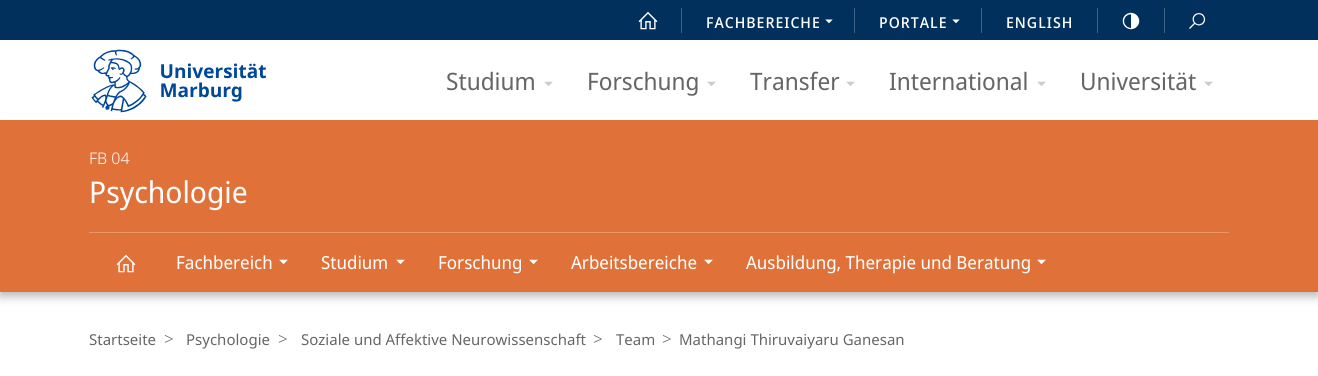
import math
import cairo


def use_color(cr, r, g, b):
  cr.set_source_rgb(r / 255, g / 255, b / 255)

def text(cr, x, y, s, family, size, color, bold=False, italic=False):
  cr.select_font_face(family, cairo.FONT_SLANT_ITALIC if italic else cairo.FONT_SLANT_NORMAL, cairo.FONT_WEIGHT_BOLD if bold else cairo.FONT_WEIGHT_NORMAL)
  cr.set_font_size(size)
  use_color(cr, *color)
  cr.move_to(x, y)
  cr.show_text(s)

def spaced_text(cr, x, y, s, letter, word):
  cr.move_to(x, y)
  for ch in s:
    cr.show_text(ch)
    cr.rel_move_to(letter + word * (ch == ' '), 0)

def box(cr, x, y, w, h, *color):
  use_color(cr, *color)
  cr.rectangle(x, y, w, h)
  cr.fill()

def round_rect(cr, x, y, w, h, r):
  cr.new_sub_path()
  for i, (u, v) in enumerate([(x + w - r, y + h - r), (x + r, y + h - r), (x + r, y + r), (x + w - r, y + r)]):
    cr.arc(u, v, r, i * math.pi / 2, (i + 1) * math.pi / 2)
  cr.close_path()

def shadow(cr, x, y, w, h, r, blur, alpha):
  cr.push_group_with_content(cairo.CONTENT_ALPHA)
  cr.set_operator(cairo.OPERATOR_SOURCE)
  for i in range(15, -16, -2):
    e = blur * i / 6
    if min(w, h) + 2 * e > 0:
      cr.set_source_rgba(0, 0, 0, alpha * math.erfc((i - 1) / 8.5) / 2)
      round_rect(cr, x - e, y - e, w + 2 * e, h + 2 * e, max(0, min(r + e + blur * .6, min(w, h) / 2 + e)))
      cr.fill()
  cr.mask(cr.pop_group())

def picture(cr, path, x, y, w, h):
  cr.save()
  cr.set_source_surface(cairo.ImageSurface.create_from_png(path), x, y)
  cr.rectangle(x, y, w, h)
  cr.fill()
  cr.restore()

def draw(cr):
  use_color(cr, 255, 255, 255)
  cr.paint()
  box(cr, 0, 0, 1318, 40, 0, 48, 91)
  picture(cr, "img_01.png", 638, 11, 20, 19)
  box(cr, 681, 8, 1, 25, 64, 100, 132)
  picture(cr, "img_02.png", 825, 19, 8, 5)
  box(cr, 854, 8, 1, 25, 64, 100, 132)
  picture(cr, "img_02.png", 952, 19, 8, 5)
  box(cr, 981, 8, 1, 25, 64, 100, 132)
  box(cr, 1097, 8, 1, 25, 64, 100, 132)
  picture(cr, "img_03.png", 1122, 12, 18, 18)
  box(cr, 1164, 8, 1, 25, 64, 100, 132)
  picture(cr, "img_04.png", 1189, 13, 17, 16)
  use_color(cr, 0, 0, 0)
  shadow(cr, 0, 124, 1318, 172, 0, 5, 0.3)
  box(cr, 0, 115, 1318, 5, 255, 255, 255)
  picture(cr, "img_05.png", 91, 49, 175, 64)
  picture(cr, "img_06.png", 544, 81, 9, 5)
  picture(cr, "img_06.png", 707, 81, 9, 5)
  picture(cr, "img_06.png", 846, 81, 9, 5)
  picture(cr, "img_06.png", 1037, 81, 9, 5)
  picture(cr, "img_06.png", 1204, 81, 9, 5)
  box(cr, 0, 120, 1318, 172, 224, 114, 57)
  box(cr, 89, 232, 1140, 1, 232, 149, 107)
  picture(cr, "img_07.png", 116, 254, 20, 19)
  picture(cr, "img_08.png", 279, 259, 9, 6)
  picture(cr, "img_08.png", 396, 259, 9, 6)
  picture(cr, "img_08.png", 529, 259, 9, 6)
  picture(cr, "img_08.png", 704, 259, 9, 6)
  picture(cr, "img_08.png", 1037, 259, 9, 6)
  cr.select_font_face("Noto Sans Display Medium")
  cr.set_font_size(15)
  use_color(cr, 255, 255, 255)
  spaced_text(cr, 706, 28, "FACHBEREICHE", 1, 0)
  spaced_text(cr, 879, 28, "PORTALE", 1, 0)
  spaced_text(cr, 1006, 28, "ENGLISH", 1, 0)
  text(cr, 446, 90, "Studium", "Noto Sans Display", 24, (102, 102, 102))
  text(cr, 587, 90, "Forschung", "Noto Sans Display", 24, (102, 102, 102))
  text(cr, 750, 90, "Transfer", "Noto Sans Display", 24, (102, 102, 102))
  text(cr, 889, 90, "International", "Noto Sans Display", 24, (102, 102, 102))
  text(cr, 1080, 90, "Universität", "Noto Sans Display", 24, (102, 102, 102))
  text(cr, 89, 164, "FB 04", "Noto Sans Light", 16, (255, 255, 255))
  text(cr, 89, 203, "Psychologie", "Noto Sans Display", 30, (255, 255, 255))
  text(cr, 176, 269, "Fachbereich", "Noto Sans Display", 18, (255, 255, 255))
  text(cr, 321, 269, "Studium", "Noto Sans Display", 18, (255, 255, 255))
  text(cr, 438, 269, "Forschung", "Noto Sans Display", 18, (255, 255, 255))
  text(cr, 571, 269, "Arbeitsbereiche", "Noto Sans Display", 18, (255, 255, 255))
  text(cr, 746, 269, "Ausbildung, Therapie und Beratung", "Noto Sans Display", 18, (255, 255, 255))
  text(cr, 89, 345, "Startseite", "Noto Sans", 15, (102, 102, 102))
  text(cr, 164, 345, ">", "Noto Sans Light", 17, (102, 102, 102))
  text(cr, 186, 345, "Psychologie", "Noto Sans", 15, (102, 102, 102))
  text(cr, 278, 345, ">", "Noto Sans Light", 17, (102, 102, 102))
  text(cr, 301, 345, "Soziale und Affektive Neurowissenschaft", "Noto Sans", 15, (102, 102, 102))
  text(cr, 593, 345, ">", "Noto Sans Light", 17, (102, 102, 102))
  text(cr, 616, 345, "Team", "Noto Sans", 15, (102, 102, 102))
  text(cr, 662, 345, ">", "Noto Sans Light", 17, (102, 102, 102))
  text(cr, 679, 345, "Mathangi Thiruvaiyaru Ganesan", "Noto Sans", 15, (102, 102, 102))


surface = cairo.ImageSurface(cairo.FORMAT_RGB24, 1318, 376)
cr = cairo.Context(surface)
options = cairo.FontOptions()
options.set_hint_metrics(cairo.HINT_METRICS_OFF)
options.set_hint_style(cairo.HINT_STYLE_NONE)
cr.set_font_options(options)
cr.set_miter_limit(4)
draw(cr)
surface.write_to_png("out.png")
